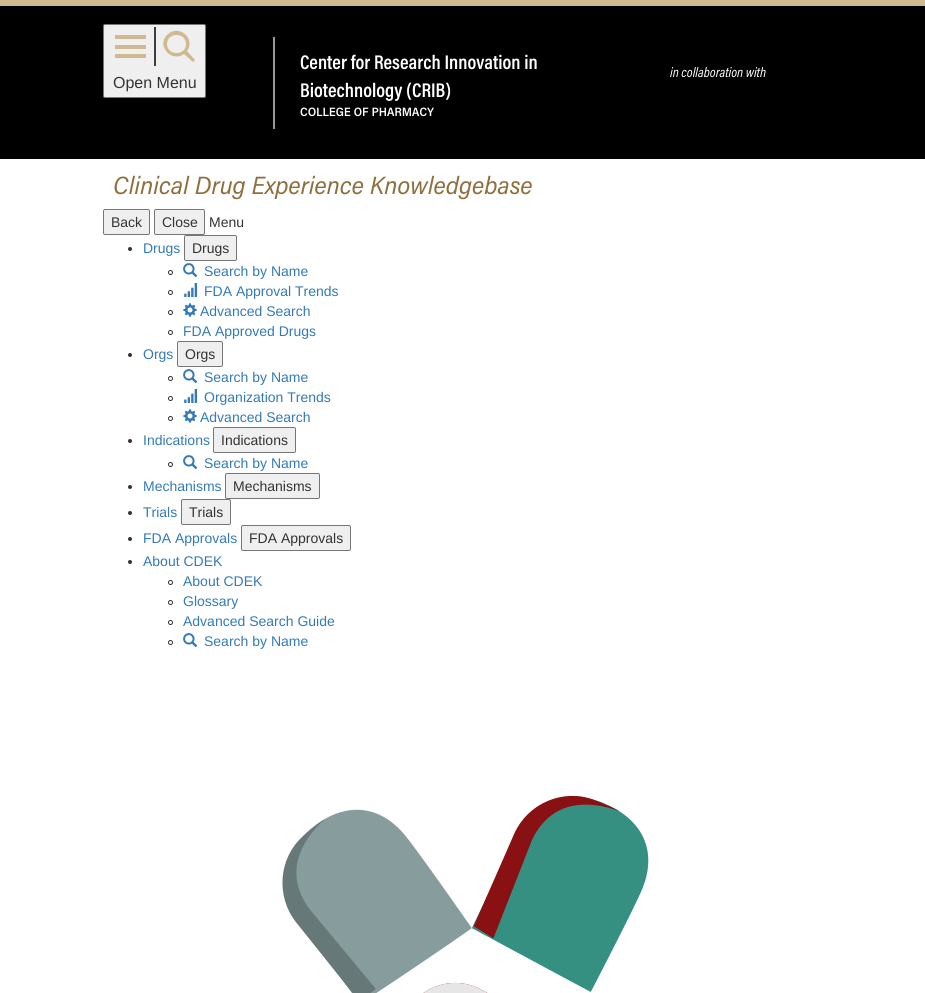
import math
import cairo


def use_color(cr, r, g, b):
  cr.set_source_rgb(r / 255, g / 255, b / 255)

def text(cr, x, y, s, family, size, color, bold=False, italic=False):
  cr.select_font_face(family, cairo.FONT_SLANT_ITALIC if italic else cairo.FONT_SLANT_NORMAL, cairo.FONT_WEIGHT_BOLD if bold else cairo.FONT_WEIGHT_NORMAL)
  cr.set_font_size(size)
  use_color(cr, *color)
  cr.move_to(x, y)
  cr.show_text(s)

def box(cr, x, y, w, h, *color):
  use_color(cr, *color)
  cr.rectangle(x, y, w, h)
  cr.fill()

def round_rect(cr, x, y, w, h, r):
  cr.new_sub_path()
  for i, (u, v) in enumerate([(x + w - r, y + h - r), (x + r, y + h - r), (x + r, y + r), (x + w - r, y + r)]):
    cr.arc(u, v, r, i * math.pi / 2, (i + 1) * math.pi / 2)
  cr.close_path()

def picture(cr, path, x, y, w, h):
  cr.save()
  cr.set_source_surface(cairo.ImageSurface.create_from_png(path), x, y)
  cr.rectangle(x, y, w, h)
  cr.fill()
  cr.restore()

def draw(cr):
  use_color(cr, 255, 255, 255)
  cr.paint()
  box(cr, 0, 0, 925, 6, 207, 185, 145)
  box(cr, 0, 6, 925, 153, 0, 0, 0)
  picture(cr, "img_01.png", 300, 107, 134, 10)
  use_color(cr, 239, 239, 239)
  round_rect(cr, 103.5, 24.5, 102, 73, 1.5)
  cr.fill_preserve()
  use_color(cr, 118, 118, 118)
  cr.set_line_width(1)
  cr.stroke()
  use_color(cr, 207, 185, 145)
  cr.new_path()
  cr.move_to(195, 60)
  cr.line_to(187, 51)
  cr.curve_to(196, 39, 179, 23, 167, 35)
  cr.curve_to(156, 46, 172, 63, 184, 54)
  cr.line_to(193, 62)
  cr.close_path()
  cr.move_to(167, 44)
  cr.curve_to(167, 32, 186, 32, 186, 44)
  cr.curve_to(186, 56, 167, 56, 167, 44)
  cr.close_path()
  cr.move_to(146, 39)
  cr.line_to(115, 39)
  cr.line_to(115, 35)
  cr.line_to(146, 35)
  cr.close_path()
  cr.move_to(146, 49)
  cr.line_to(115, 49)
  cr.line_to(115, 45)
  cr.line_to(146, 45)
  cr.close_path()
  cr.move_to(146, 58)
  cr.line_to(115, 58)
  cr.line_to(115, 54)
  cr.line_to(146, 54)
  cr.close_path()
  cr.fill()
  box(cr, 154, 27, 2, 39, 61, 61, 61)
  box(cr, 273, 37, 2, 92, 153, 153, 153)
  picture(cr, "img_02.png", 114, 175, 418, 25)
  use_color(cr, 239, 239, 239)
  round_rect(cr, 103.5, 209.5, 46, 25, 1.5)
  cr.fill_preserve()
  use_color(cr, 118, 118, 118)
  cr.stroke()
  use_color(cr, 239, 239, 239)
  round_rect(cr, 154.5, 209.5, 50, 25, 1.5)
  cr.fill_preserve()
  use_color(cr, 118, 118, 118)
  cr.stroke()
  use_color(cr, 51, 51, 51)
  cr.arc(130, 249, 2, 0, 2 * math.pi)
  cr.fill()
  use_color(cr, 239, 239, 239)
  round_rect(cr, 184.5, 235.5, 52, 25, 1.5)
  cr.fill_preserve()
  use_color(cr, 118, 118, 118)
  cr.stroke()
  cr.arc(170.5, 272.5, 2, 0, 2 * math.pi)
  use_color(cr, 51, 51, 51)
  cr.stroke()
  picture(cr, "img_03.png", 183, 263, 15, 14)
  cr.arc(170.5, 292.5, 2, 0, 2 * math.pi)
  cr.stroke()
  picture(cr, "img_04.png", 184, 283, 13, 14)
  cr.arc(170.5, 312.5, 2, 0, 2 * math.pi)
  cr.stroke()
  picture(cr, "img_05.png", 183, 303, 14, 14)
  cr.arc(170.5, 332.5, 2, 0, 2 * math.pi)
  cr.stroke()
  cr.arc(130, 355, 2, 0, 2 * math.pi)
  cr.fill()
  use_color(cr, 239, 239, 239)
  round_rect(cr, 177.5, 341.5, 45, 25, 1.5)
  cr.fill_preserve()
  use_color(cr, 118, 118, 118)
  cr.stroke()
  cr.arc(170.5, 378.5, 2, 0, 2 * math.pi)
  use_color(cr, 51, 51, 51)
  cr.stroke()
  picture(cr, "img_03.png", 183, 369, 15, 14)
  cr.arc(170.5, 398.5, 2, 0, 2 * math.pi)
  cr.stroke()
  picture(cr, "img_04.png", 184, 389, 13, 14)
  cr.arc(170.5, 418.5, 2, 0, 2 * math.pi)
  cr.stroke()
  picture(cr, "img_05.png", 183, 409, 14, 14)
  cr.arc(130, 441, 2, 0, 2 * math.pi)
  cr.fill()
  use_color(cr, 239, 239, 239)
  round_rect(cr, 213.5, 427.5, 82, 25, 1.5)
  cr.fill_preserve()
  use_color(cr, 118, 118, 118)
  cr.stroke()
  cr.arc(170.5, 464.5, 2, 0, 2 * math.pi)
  use_color(cr, 51, 51, 51)
  cr.stroke()
  picture(cr, "img_03.png", 183, 455, 15, 14)
  cr.arc(130, 487, 2, 0, 2 * math.pi)
  cr.fill()
  use_color(cr, 239, 239, 239)
  round_rect(cr, 225.5, 473.5, 94, 25, 1.5)
  cr.fill_preserve()
  use_color(cr, 118, 118, 118)
  cr.stroke()
  use_color(cr, 51, 51, 51)
  cr.arc(130, 513, 2, 0, 2 * math.pi)
  cr.fill()
  use_color(cr, 239, 239, 239)
  round_rect(cr, 181.5, 499.5, 49, 25, 1.5)
  cr.fill_preserve()
  use_color(cr, 118, 118, 118)
  cr.stroke()
  use_color(cr, 51, 51, 51)
  cr.arc(130, 539, 2, 0, 2 * math.pi)
  cr.fill()
  use_color(cr, 239, 239, 239)
  round_rect(cr, 241.5, 525.5, 109, 25, 1.5)
  cr.fill_preserve()
  use_color(cr, 118, 118, 118)
  cr.stroke()
  use_color(cr, 51, 51, 51)
  cr.arc(130, 562, 2, 0, 2 * math.pi)
  cr.fill()
  cr.arc(170.5, 582.5, 2, 0, 2 * math.pi)
  cr.stroke()
  cr.arc(170.5, 602.5, 2, 0, 2 * math.pi)
  cr.stroke()
  cr.arc(170.5, 622.5, 2, 0, 2 * math.pi)
  cr.stroke()
  cr.arc(170.5, 642.5, 2, 0, 2 * math.pi)
  cr.stroke()
  picture(cr, "img_03.png", 183, 633, 15, 14)
  picture(cr, "img_06.png", 282, 795, 367, 198)
  text(cr, 300, 69, "Center for Research Innovation in", "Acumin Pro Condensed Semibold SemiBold", 20, (255, 255, 255))
  text(cr, 300, 97, "Biotechnology (CRIB)", "Acumin Pro Condensed Semibold SemiBold", 20, (255, 255, 255))
  text(cr, 670, 77, "in collaboration with", "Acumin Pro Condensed", 14, (255, 255, 255), italic=True)
  text(cr, 113, 88, "Open Menu", "Liberation Sans", 16, (51, 51, 51))
  text(cr, 111, 227, "Back", "Liberation Sans", 14, (51, 51, 51))
  text(cr, 162, 227, "Close", "Liberation Sans", 14, (51, 51, 51))
  text(cr, 209, 227, "Menu", "Liberation Sans", 14, (51, 51, 51))
  text(cr, 143, 253, "Drugs", "Liberation Sans", 14, (51, 122, 183))
  text(cr, 192, 253, "Drugs", "Liberation Sans", 14, (51, 51, 51))
  text(cr, 204, 276, "Search by Name", "Liberation Sans", 14, (51, 122, 183))
  text(cr, 204, 296, "FDA Approval Trends", "Liberation Sans", 14, (51, 122, 183))
  text(cr, 200, 316, "Advanced Search", "Liberation Sans", 14, (51, 122, 183))
  text(cr, 183, 336, "FDA Approved Drugs", "Liberation Sans", 14, (51, 122, 183))
  text(cr, 143, 359, "Orgs", "Liberation Sans", 14, (51, 122, 183))
  text(cr, 185, 359, "Orgs", "Liberation Sans", 14, (51, 51, 51))
  text(cr, 204, 382, "Search by Name", "Liberation Sans", 14, (51, 122, 183))
  text(cr, 204, 402, "Organization Trends", "Liberation Sans", 14, (51, 122, 183))
  text(cr, 200, 422, "Advanced Search", "Liberation Sans", 14, (51, 122, 183))
  text(cr, 143, 445, "Indications", "Liberation Sans", 14, (51, 122, 183))
  text(cr, 221, 445, "Indications", "Liberation Sans", 14, (51, 51, 51))
  text(cr, 204, 468, "Search by Name", "Liberation Sans", 14, (51, 122, 183))
  text(cr, 143, 491, "Mechanisms", "Liberation Sans", 14, (51, 122, 183))
  text(cr, 233, 491, "Mechanisms", "Liberation Sans", 14, (51, 51, 51))
  text(cr, 143, 517, "Trials", "Liberation Sans", 14, (51, 122, 183))
  text(cr, 189, 517, "Trials", "Liberation Sans", 14, (51, 51, 51))
  text(cr, 143, 543, "FDA Approvals", "Liberation Sans", 14, (51, 122, 183))
  text(cr, 249, 543, "FDA Approvals", "Liberation Sans", 14, (51, 51, 51))
  text(cr, 143, 566, "About CDEK", "Liberation Sans", 14, (51, 122, 183))
  text(cr, 183, 586, "About CDEK", "Liberation Sans", 14, (51, 122, 183))
  text(cr, 183, 606, "Glossary", "Liberation Sans", 14, (51, 122, 183))
  text(cr, 183, 626, "Advanced Search Guide", "Liberation Sans", 14, (51, 122, 183))
  text(cr, 204, 646, "Search by Name", "Liberation Sans", 14, (51, 122, 183))


surface = cairo.ImageSurface(cairo.FORMAT_RGB24, 925, 993)
cr = cairo.Context(surface)
options = cairo.FontOptions()
options.set_hint_metrics(cairo.HINT_METRICS_OFF)
options.set_hint_style(cairo.HINT_STYLE_NONE)
cr.set_font_options(options)
cr.set_miter_limit(4)
draw(cr)
surface.write_to_png("out.png")
